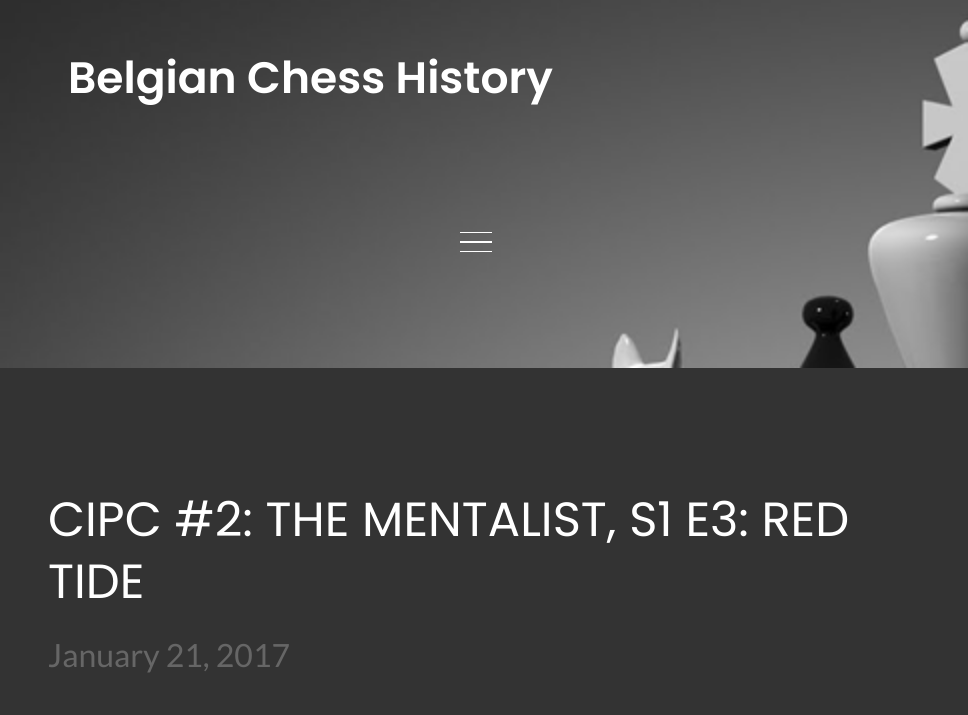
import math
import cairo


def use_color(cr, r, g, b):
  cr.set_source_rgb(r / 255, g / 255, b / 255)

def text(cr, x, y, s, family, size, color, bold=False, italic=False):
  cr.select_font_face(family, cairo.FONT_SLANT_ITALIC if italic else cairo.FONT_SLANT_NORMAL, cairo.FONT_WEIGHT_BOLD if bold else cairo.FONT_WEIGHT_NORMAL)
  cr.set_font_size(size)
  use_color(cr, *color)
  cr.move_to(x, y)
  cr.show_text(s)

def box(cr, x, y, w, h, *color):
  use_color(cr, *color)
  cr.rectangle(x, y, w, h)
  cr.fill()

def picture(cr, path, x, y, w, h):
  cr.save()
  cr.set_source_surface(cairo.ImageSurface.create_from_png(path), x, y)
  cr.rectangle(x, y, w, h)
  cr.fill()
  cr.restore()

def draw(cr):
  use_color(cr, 51, 51, 51)
  cr.paint()
  picture(cr, "img_01.png", 0, 0, 968, 368)
  box(cr, 460, 232, 32, 1, 255, 255, 255)
  box(cr, 460, 241, 32, 2, 255, 255, 255)
  box(cr, 460, 251, 32, 1, 255, 255, 255)
  text(cr, 68, 93, "Belgian Chess History", "Poppins SemiBold", 44, (255, 255, 255))
  text(cr, 48, 536, "CIPC #2: THE MENTALIST, S1 E3: RED", "Poppins", 48, (255, 255, 255))
  text(cr, 48, 598, "TIDE", "Poppins", 48, (255, 255, 255))
  text(cr, 48, 667, "January 21, 2017", "Lato", 32, (102, 102, 102))


surface = cairo.ImageSurface(cairo.FORMAT_RGB24, 968, 715)
cr = cairo.Context(surface)
options = cairo.FontOptions()
options.set_hint_metrics(cairo.HINT_METRICS_OFF)
options.set_hint_style(cairo.HINT_STYLE_NONE)
cr.set_font_options(options)
cr.set_miter_limit(4)
draw(cr)
surface.write_to_png("out.png")
